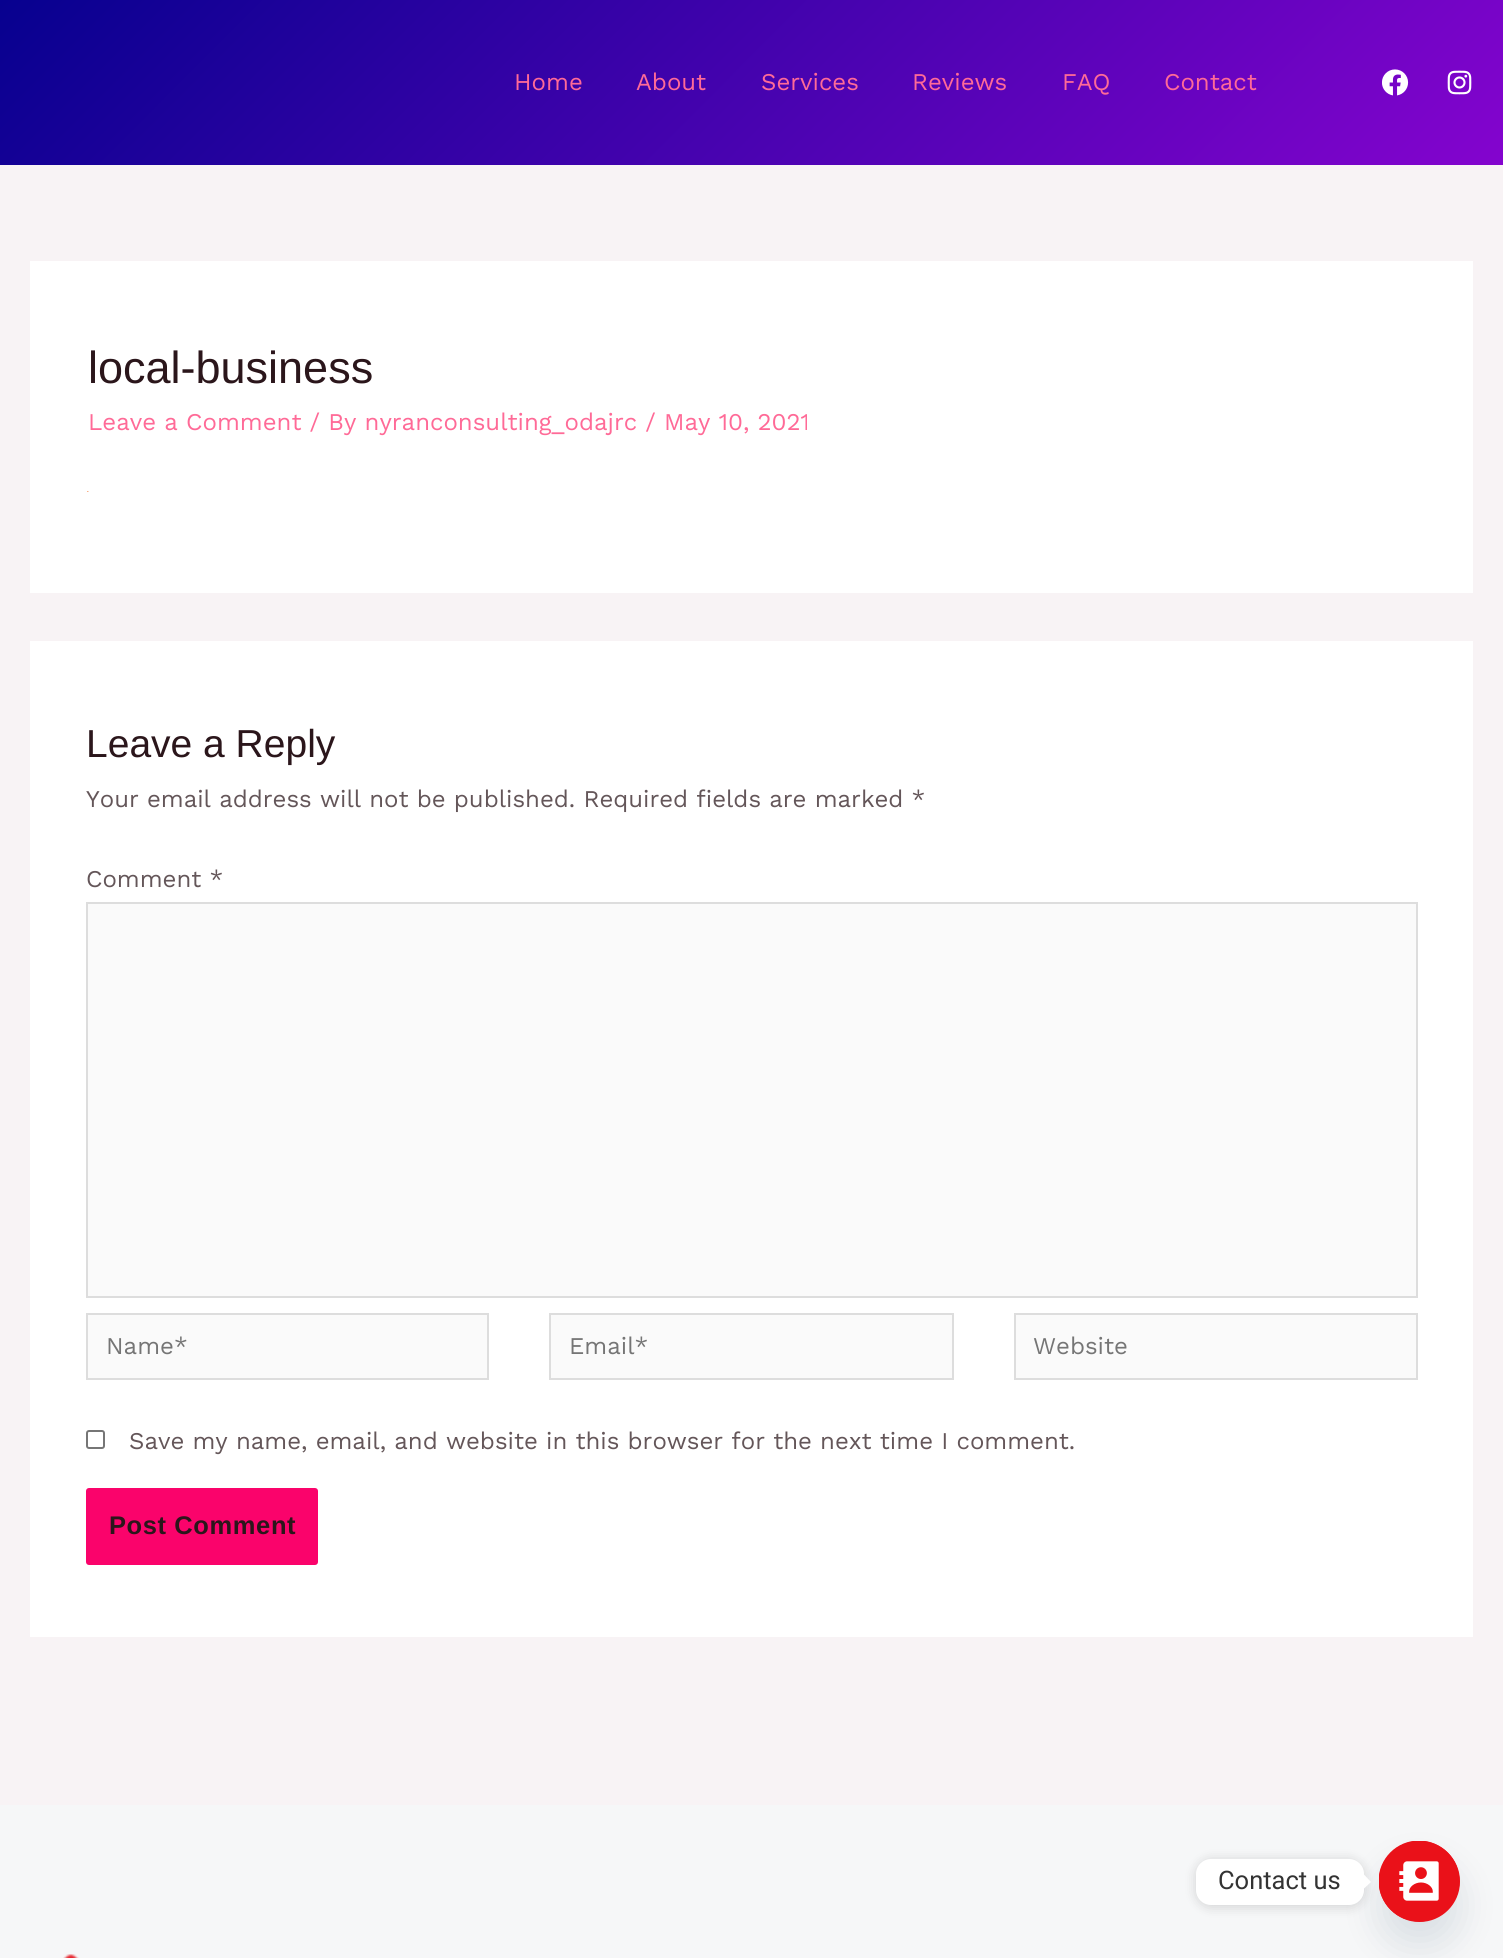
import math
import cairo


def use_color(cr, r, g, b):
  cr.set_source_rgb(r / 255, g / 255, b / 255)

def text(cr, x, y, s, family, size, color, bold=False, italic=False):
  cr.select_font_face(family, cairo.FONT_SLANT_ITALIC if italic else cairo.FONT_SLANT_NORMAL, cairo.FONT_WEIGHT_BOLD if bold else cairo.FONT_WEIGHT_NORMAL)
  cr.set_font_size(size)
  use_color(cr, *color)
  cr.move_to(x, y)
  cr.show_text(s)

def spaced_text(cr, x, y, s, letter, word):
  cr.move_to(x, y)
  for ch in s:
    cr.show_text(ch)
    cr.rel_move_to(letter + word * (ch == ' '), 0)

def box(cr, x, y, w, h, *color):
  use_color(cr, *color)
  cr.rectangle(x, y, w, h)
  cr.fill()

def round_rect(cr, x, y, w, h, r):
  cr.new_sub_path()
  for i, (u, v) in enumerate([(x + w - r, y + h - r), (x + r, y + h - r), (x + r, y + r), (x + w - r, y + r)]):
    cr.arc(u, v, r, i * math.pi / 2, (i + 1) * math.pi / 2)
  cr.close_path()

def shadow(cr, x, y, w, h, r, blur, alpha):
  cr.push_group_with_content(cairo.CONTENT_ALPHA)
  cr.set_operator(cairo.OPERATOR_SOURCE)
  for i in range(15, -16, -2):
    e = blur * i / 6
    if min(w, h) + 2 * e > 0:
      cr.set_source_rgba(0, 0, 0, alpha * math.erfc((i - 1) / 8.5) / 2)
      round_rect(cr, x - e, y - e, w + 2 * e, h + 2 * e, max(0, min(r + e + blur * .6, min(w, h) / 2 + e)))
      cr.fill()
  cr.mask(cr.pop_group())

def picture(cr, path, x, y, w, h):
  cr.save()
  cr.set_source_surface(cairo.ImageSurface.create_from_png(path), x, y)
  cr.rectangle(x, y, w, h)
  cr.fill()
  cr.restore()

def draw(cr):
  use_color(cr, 248, 243, 245)
  cr.paint()
  gradient = cairo.LinearGradient(335, -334, 1169, 499)
  gradient.add_color_stop_rgba(0, 0.027, 0.004, 0.561, 1)
  gradient.add_color_stop_rgba(1, 0.518, 0.016, 0.808, 1)
  cr.set_source(gradient)
  cr.rectangle(0, 0, 1503, 165)
  cr.fill()
  picture(cr, "img_01.png", 1382, 69, 27, 27)
  picture(cr, "img_02.png", 1447, 70, 25, 25)
  box(cr, 30, 261, 1443, 332, 255, 255, 255)
  picture(cr, "img_03.png", 87, 491, 2, 1)
  box(cr, 30, 641, 1443, 996, 255, 255, 255)
  use_color(cr, 250, 250, 250)
  cr.rectangle(87, 903, 1330, 394)
  cr.fill_preserve()
  use_color(cr, 221, 221, 221)
  cr.stroke()
  use_color(cr, 250, 250, 250)
  cr.rectangle(87, 1314, 401, 65)
  cr.fill_preserve()
  use_color(cr, 221, 221, 221)
  cr.stroke()
  use_color(cr, 250, 250, 250)
  cr.rectangle(550, 1314, 403, 65)
  cr.fill_preserve()
  use_color(cr, 221, 221, 221)
  cr.stroke()
  use_color(cr, 250, 250, 250)
  cr.rectangle(1015, 1314, 402, 65)
  cr.fill_preserve()
  use_color(cr, 221, 221, 221)
  cr.stroke()
  round_rect(cr, 87, 1431, 17, 17, 2)
  use_color(cr, 118, 118, 118)
  cr.stroke()
  use_color(cr, 250, 3, 107)
  round_rect(cr, 86, 1488, 232, 77, 3)
  cr.fill()
  box(cr, 0, 1805, 1503, 153, 246, 247, 248)
  picture(cr, "img_04.png", 63, 1954, 16, 4)
  use_color(cr, 73, 104, 126)
  shadow(cr, 1379, 1865, 81, 81, 40.5, 18, 0.16)
  use_color(cr, 234, 17, 25)
  cr.arc(1419.5, 1881.5, 40.5, 0, 2 * math.pi)
  cr.fill()
  picture(cr, "img_05.png", 1379, 1841, 81, 81)
  use_color(cr, 0, 0, 0)
  shadow(cr, 1196, 1860, 168, 47, 15, 6, 0.15)
  use_color(cr, 255, 255, 255)
  round_rect(cr, 1196, 1859, 168, 46, 15)
  cr.fill()
  cr.new_path()
  cr.move_to(1363.5, 1889)
  cr.line_to(1363.5, 1874)
  cr.line_to(1371, 1882)
  cr.close_path()
  cr.fill()
  text(cr, 514, 90, "Home", "Work Sans", 24, (255, 106, 151))
  text(cr, 636, 90, "About", "Work Sans", 24, (255, 106, 151))
  text(cr, 761, 90, "Services", "Work Sans", 24, (255, 106, 151))
  text(cr, 912, 90, "Reviews", "Work Sans", 24, (255, 106, 151))
  text(cr, 1062, 90, "FAQ", "Work Sans", 24, (255, 106, 151))
  text(cr, 1164, 90, "Contact", "Work Sans", 24, (255, 106, 151))
  text(cr, 88, 383, "local-business", "Liberation Sans", 45, (43, 22, 27))
  text(cr, 88, 430, "Leave a Comment / By nyranconsulting_odajrc / May 10, 2021", "Work Sans", 24, (255, 106, 151))
  text(cr, 86, 757, "Leave a Reply", "Liberation Sans", 39, (43, 22, 27))
  text(cr, 86, 807, "Your email address will not be published. Required fields are marked *", "Work Sans", 24, (100, 86, 89))
  text(cr, 86, 887, "Comment *", "Work Sans", 24, (100, 86, 89))
  text(cr, 106, 1354, "Name*", "Work Sans", 24, (117, 117, 117))
  text(cr, 569, 1354, "Email*", "Work Sans", 24, (117, 117, 117))
  text(cr, 1033, 1354, "Website", "Work Sans", 24, (117, 117, 117))
  text(cr, 129, 1449, "Save my name, email, and website in this browser for the next time I comment.", "Work Sans", 24, (100, 86, 89))
  cr.select_font_face("Liberation Sans", cairo.FONT_SLANT_NORMAL, cairo.FONT_WEIGHT_BOLD)
  cr.set_font_size(25.5)
  use_color(cr, 43, 22, 27)
  spaced_text(cr, 109, 1534, "Post Comment", 0.6, 0)
  text(cr, 1218, 1889, "Contact us", "Roboto", 25.5, (51, 51, 51))


surface = cairo.ImageSurface(cairo.FORMAT_RGB24, 1503, 1958)
cr = cairo.Context(surface)
options = cairo.FontOptions()
options.set_hint_metrics(cairo.HINT_METRICS_OFF)
options.set_hint_style(cairo.HINT_STYLE_NONE)
cr.set_font_options(options)
cr.set_miter_limit(4)
draw(cr)
surface.write_to_png("out.png")
